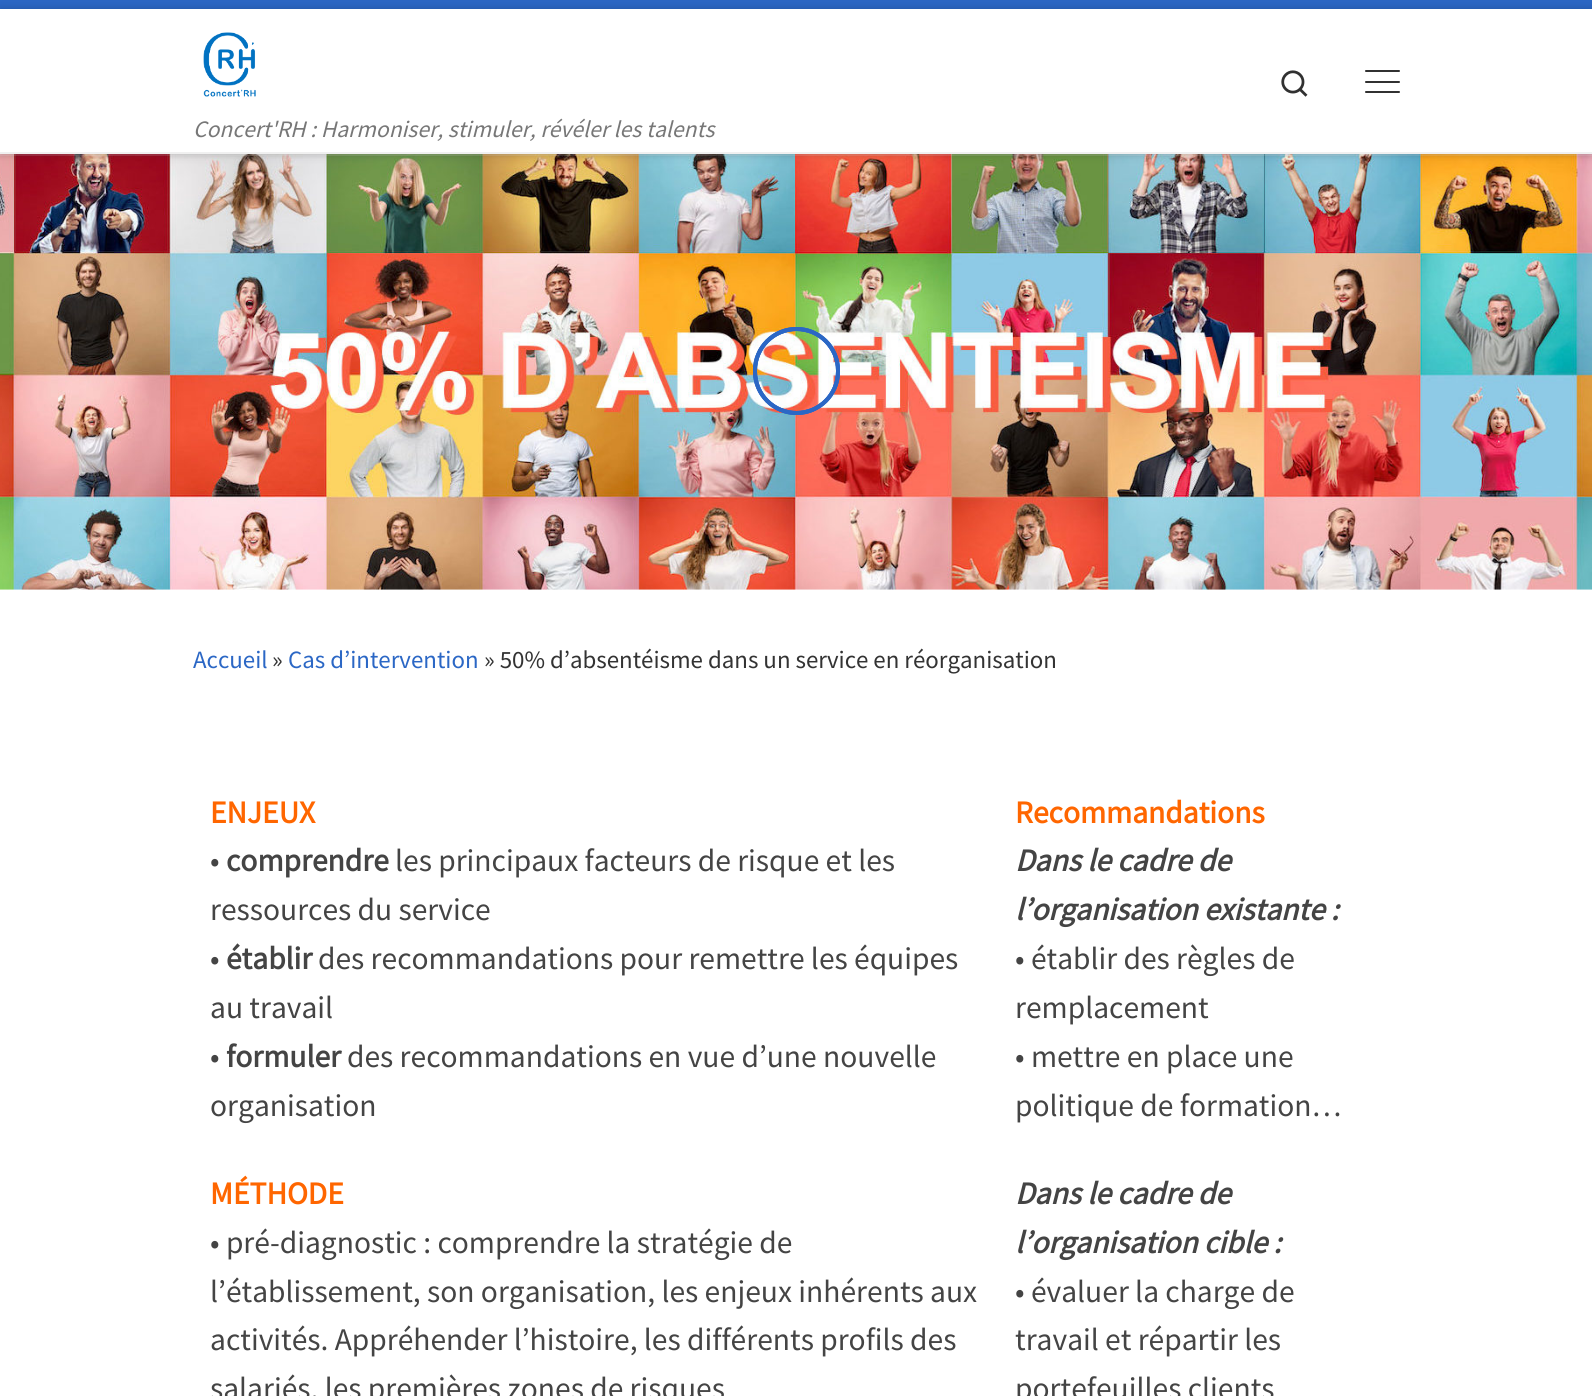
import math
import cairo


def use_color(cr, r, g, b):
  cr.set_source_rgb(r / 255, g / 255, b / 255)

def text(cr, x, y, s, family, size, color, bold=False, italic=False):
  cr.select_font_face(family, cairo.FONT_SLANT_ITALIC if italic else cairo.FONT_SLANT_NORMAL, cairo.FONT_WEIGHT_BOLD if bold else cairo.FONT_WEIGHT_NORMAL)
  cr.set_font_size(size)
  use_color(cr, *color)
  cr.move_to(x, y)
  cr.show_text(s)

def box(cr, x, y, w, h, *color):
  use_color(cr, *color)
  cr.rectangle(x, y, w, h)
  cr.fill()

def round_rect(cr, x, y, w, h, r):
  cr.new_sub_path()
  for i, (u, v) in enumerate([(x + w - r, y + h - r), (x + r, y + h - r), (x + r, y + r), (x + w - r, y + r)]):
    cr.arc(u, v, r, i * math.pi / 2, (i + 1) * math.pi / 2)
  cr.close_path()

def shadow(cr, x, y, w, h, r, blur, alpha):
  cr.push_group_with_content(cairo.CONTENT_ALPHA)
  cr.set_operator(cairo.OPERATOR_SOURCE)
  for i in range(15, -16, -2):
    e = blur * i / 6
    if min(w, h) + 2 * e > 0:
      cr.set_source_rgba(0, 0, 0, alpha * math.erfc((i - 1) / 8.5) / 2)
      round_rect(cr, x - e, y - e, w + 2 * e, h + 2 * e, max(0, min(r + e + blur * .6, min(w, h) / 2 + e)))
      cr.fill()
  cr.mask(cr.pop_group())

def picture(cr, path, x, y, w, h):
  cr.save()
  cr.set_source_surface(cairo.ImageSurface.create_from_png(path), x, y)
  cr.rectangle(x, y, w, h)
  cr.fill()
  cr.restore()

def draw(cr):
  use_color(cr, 255, 255, 255)
  cr.paint()
  picture(cr, "img_03.png", 0, 154, 1592, 436)
  use_color(cr, 102, 102, 102)
  shadow(cr, 0, 4, 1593, 152, 0, 2, 0.08)
  box(cr, 0, 0, 1592, 9, 43, 103, 197)
  cr.set_source_rgba(1, 1, 1, 0.15)
  cr.new_path()
  cr.move_to(0, 154)
  cr.line_to(0, 156)
  cr.line_to(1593, 156)
  cr.line_to(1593, 11)
  cr.line_to(1592, 11)
  cr.line_to(1592, 154)
  cr.close_path()
  cr.fill()
  use_color(cr, 0, 0, 0)
  shadow(cr, 0, 9, 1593, 145, 0, 4.5, 0.2)
  box(cr, 0, 9, 1592, 143, 255, 255, 255)
  picture(cr, "img_01.png", 1281, 70, 27, 27)
  use_color(cr, 49, 49, 49)
  round_rect(cr, 1365, 70, 35, 2, 1)
  cr.fill()
  round_rect(cr, 1365, 81, 35, 2, 1)
  cr.fill()
  round_rect(cr, 1365, 91, 35, 2, 1)
  cr.fill()
  picture(cr, "img_02.png", 203, 32, 53, 65)
  box(cr, 0, 152, 1592, 2, 240, 240, 240)
  round_rect(cr, 755, 329, 83, 84, 41.5)
  cr.set_source_rgba(0.169, 0.404, 0.773, 0.93)
  cr.set_line_width(4)
  cr.stroke()
  round_rect(cr, 755, 329, 83, 84, 41.5)
  cr.stroke()
  round_rect(cr, 755, 329, 83, 84, 41.5)
  cr.stroke()
  text(cr, 193, 137, "Concert'RH : Harmoniser, stimuler, révéler les talents", "Source Sans Pro", 23.6, (119, 119, 119), italic=True)
  text(cr, 193, 668, "Accueil", "Source Sans Pro", 24.9, (43, 103, 197))
  text(cr, 272, 668, "»", "Source Sans Pro", 24.9, (51, 51, 51))
  text(cr, 288, 668, "Cas d’intervention", "Source Sans Pro", 24.9, (43, 103, 197))
  text(cr, 484, 668, "» 50% d’absentéisme dans un service en réorganisation", "Source Sans Pro", 24.9, (51, 51, 51))
  text(cr, 210, 823, "ENJEUX", "Source Sans Pro", 31.5, (255, 102, 0), bold=True)
  text(cr, 210, 871, "•", "Source Sans Pro", 31.5, (68, 68, 68))
  text(cr, 226, 871, "comprendre", "Source Sans Pro", 31.5, (68, 68, 68), bold=True)
  text(cr, 395, 871, "les principaux facteurs de risque et les", "Source Sans Pro", 31.5, (68, 68, 68))
  text(cr, 210, 920, "ressources du service", "Source Sans Pro", 31.5, (68, 68, 68))
  text(cr, 210, 969, "•", "Source Sans Pro", 31.5, (68, 68, 68))
  text(cr, 226, 969, "établir", "Source Sans Pro", 31.5, (68, 68, 68), bold=True)
  text(cr, 318, 969, "des recommandations pour remettre les équipes", "Source Sans Pro", 31.5, (68, 68, 68))
  text(cr, 210, 1018, "au travail", "Source Sans Pro", 31.5, (68, 68, 68))
  text(cr, 210, 1067, "•", "Source Sans Pro", 31.5, (68, 68, 68))
  text(cr, 226, 1067, "formuler", "Source Sans Pro", 31.5, (68, 68, 68), bold=True)
  text(cr, 347, 1067, "des recommandations en vue d’une nouvelle", "Source Sans Pro", 31.5, (68, 68, 68))
  text(cr, 210, 1116, "organisation", "Source Sans Pro", 31.5, (68, 68, 68))
  text(cr, 210, 1204, "MÉTHODE", "Source Sans Pro", 31.5, (255, 102, 0), bold=True)
  text(cr, 210, 1253, "• pré-diagnostic : comprendre la stratégie de", "Source Sans Pro", 31.5, (68, 68, 68))
  text(cr, 210, 1302, "l’établissement, son organisation, les enjeux inhérents aux", "Source Sans Pro", 31.5, (68, 68, 68))
  text(cr, 210, 1350, "activités. Appréhender l’histoire, les différents profils des", "Source Sans Pro", 31.5, (68, 68, 68))
  text(cr, 210, 1399, "salariés, les premières zones de risques", "Source Sans Pro", 31.5, (68, 68, 68))
  text(cr, 1015, 823, "Recommandations", "Source Sans Pro", 31.5, (255, 102, 0), bold=True)
  text(cr, 1015, 871, "Dans le cadre de", "Source Sans Pro", 31.5, (68, 68, 68), bold=True, italic=True)
  text(cr, 1015, 920, "l’organisation existante :", "Source Sans Pro", 31.5, (68, 68, 68), bold=True, italic=True)
  text(cr, 1015, 969, "• établir des règles de", "Source Sans Pro", 31.5, (68, 68, 68))
  text(cr, 1015, 1018, "remplacement", "Source Sans Pro", 31.5, (68, 68, 68))
  text(cr, 1015, 1067, "• mettre en place une", "Source Sans Pro", 31.5, (68, 68, 68))
  text(cr, 1015, 1116, "politique de formation…", "Source Sans Pro", 31.5, (68, 68, 68))
  text(cr, 1015, 1204, "Dans le cadre de", "Source Sans Pro", 31.5, (68, 68, 68), bold=True, italic=True)
  text(cr, 1015, 1253, "l’organisation cible :", "Source Sans Pro", 31.5, (68, 68, 68), bold=True, italic=True)
  text(cr, 1015, 1302, "• évaluer la charge de", "Source Sans Pro", 31.5, (68, 68, 68))
  text(cr, 1015, 1350, "travail et répartir les", "Source Sans Pro", 31.5, (68, 68, 68))
  text(cr, 1015, 1399, "portefeuilles clients", "Source Sans Pro", 31.5, (68, 68, 68))


surface = cairo.ImageSurface(cairo.FORMAT_RGB24, 1592, 1396)
cr = cairo.Context(surface)
options = cairo.FontOptions()
options.set_hint_metrics(cairo.HINT_METRICS_OFF)
options.set_hint_style(cairo.HINT_STYLE_NONE)
cr.set_font_options(options)
cr.set_miter_limit(4)
draw(cr)
surface.write_to_png("out.png")
